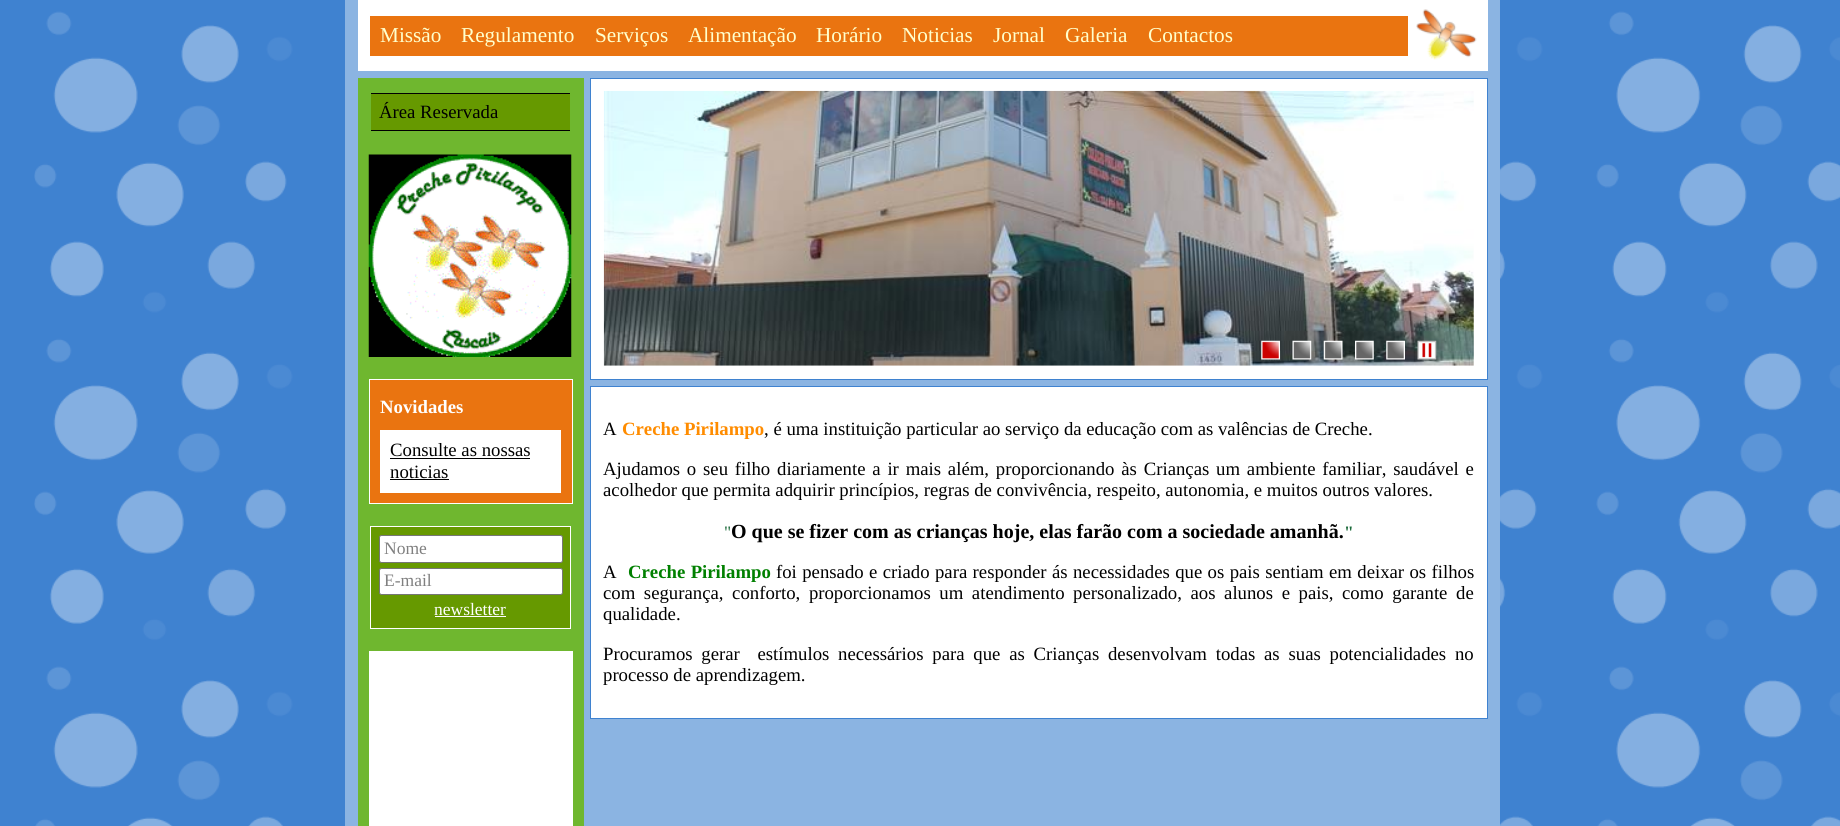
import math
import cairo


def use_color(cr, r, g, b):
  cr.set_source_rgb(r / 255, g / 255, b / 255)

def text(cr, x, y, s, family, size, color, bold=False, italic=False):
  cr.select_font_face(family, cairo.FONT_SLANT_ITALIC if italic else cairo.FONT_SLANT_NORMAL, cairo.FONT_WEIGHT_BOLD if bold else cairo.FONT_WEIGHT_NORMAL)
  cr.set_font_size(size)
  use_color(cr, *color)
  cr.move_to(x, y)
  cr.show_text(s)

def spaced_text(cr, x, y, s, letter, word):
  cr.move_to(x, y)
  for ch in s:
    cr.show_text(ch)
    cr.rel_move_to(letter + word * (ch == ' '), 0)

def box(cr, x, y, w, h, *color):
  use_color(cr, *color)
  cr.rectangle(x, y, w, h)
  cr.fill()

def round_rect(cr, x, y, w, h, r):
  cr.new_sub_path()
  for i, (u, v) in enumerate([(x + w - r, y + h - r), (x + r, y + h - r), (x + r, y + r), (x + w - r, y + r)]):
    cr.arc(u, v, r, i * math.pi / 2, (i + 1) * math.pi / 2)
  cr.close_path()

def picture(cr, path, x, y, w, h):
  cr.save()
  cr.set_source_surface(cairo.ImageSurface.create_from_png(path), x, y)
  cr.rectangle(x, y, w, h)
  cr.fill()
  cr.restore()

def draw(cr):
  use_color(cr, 63, 130, 208)
  cr.paint()
  picture(cr, "img_01.png", 34, 11, 1806, 815)
  box(cr, 345, 0, 1155, 826, 139, 180, 226)
  box(cr, 358, 0, 1130, 71, 255, 255, 255)
  box(cr, 370, 16, 1038, 40, 234, 116, 16)
  picture(cr, "img_02.png", 1416, 9, 61, 51)
  box(cr, 358, 78, 226, 748, 111, 183, 47)
  box(cr, 371, 94, 199, 36, 102, 153, 0)
  box(cr, 371, 93, 199, 1, 0, 0, 0)
  box(cr, 371, 130, 199, 1, 0, 0, 0)
  picture(cr, "img_03.png", 368, 154, 204, 203)
  use_color(cr, 234, 116, 16)
  cr.rectangle(369.5, 379.5, 203, 124)
  cr.fill_preserve()
  use_color(cr, 255, 255, 255)
  cr.set_line_width(1)
  cr.stroke()
  box(cr, 380, 430, 181, 63, 255, 255, 255)
  box(cr, 390, 458, 140, 1, 0, 0, 0)
  box(cr, 390, 479, 59, 1, 0, 0, 0)
  use_color(cr, 102, 153, 0)
  cr.rectangle(370.5, 526.5, 200, 102)
  cr.fill_preserve()
  use_color(cr, 255, 255, 255)
  cr.stroke()
  round_rect(cr, 379.5, 535.5, 183, 27, 2)
  cr.fill_preserve()
  use_color(cr, 118, 118, 118)
  cr.stroke()
  use_color(cr, 255, 255, 255)
  round_rect(cr, 379.5, 568.5, 183, 26, 2)
  cr.fill_preserve()
  use_color(cr, 118, 118, 118)
  cr.stroke()
  box(cr, 435, 616, 71, 1, 255, 255, 255)
  box(cr, 369, 651, 204, 175, 255, 255, 255)
  cr.rectangle(590.5, 78.5, 897, 301)
  cr.fill_preserve()
  use_color(cr, 63, 130, 208)
  cr.stroke()
  picture(cr, "img_04.png", 603, 90, 871, 276)
  picture(cr, "img_05.png", 1261, 340, 19, 20)
  picture(cr, "img_06.png", 1292, 340, 20, 20)
  picture(cr, "img_07.png", 1323, 340, 20, 20)
  picture(cr, "img_08.png", 1355, 340, 19, 20)
  picture(cr, "img_09.png", 1386, 340, 19, 20)
  picture(cr, "img_10.png", 1417, 340, 20, 20)
  use_color(cr, 255, 255, 255)
  cr.rectangle(590.5, 386.5, 897, 332)
  cr.fill_preserve()
  use_color(cr, 63, 130, 208)
  cr.stroke()
  text(cr, 380, 42, "Missão", "Liberation Serif", 21.25, (255, 255, 204))
  text(cr, 461, 42, "Regulamento", "Liberation Serif", 21.25, (255, 255, 204))
  text(cr, 595, 42, "Serviços", "Liberation Serif", 21.25, (255, 255, 204))
  text(cr, 688, 42, "Alimentação", "Liberation Serif", 21.25, (255, 255, 204))
  text(cr, 816, 42, "Horário", "Liberation Serif", 21.25, (255, 255, 204))
  text(cr, 902, 42, "Noticias", "Liberation Serif", 21.25, (255, 255, 204))
  text(cr, 993, 42, "Jornal", "Liberation Serif", 21.25, (255, 255, 204))
  text(cr, 1065, 42, "Galeria", "Liberation Serif", 21.25, (255, 255, 204))
  text(cr, 1148, 42, "Contactos", "Liberation Serif", 21.25, (255, 255, 204))
  text(cr, 379, 118, "Área Reservada", "Liberation Serif", 18.75, (0, 0, 0))
  text(cr, 380, 413, "Novidades", "Liberation Serif", 18.75, (255, 255, 255), bold=True)
  text(cr, 390, 456, "Consulte as nossas", "Liberation Serif", 18.75, (0, 0, 0))
  text(cr, 390, 478, "noticias", "Liberation Serif", 18.75, (0, 0, 0))
  text(cr, 384, 554, "Nome", "Liberation Serif", 17.5, (128, 128, 128))
  text(cr, 384, 586, "E-mail", "Liberation Serif", 17.5, (128, 128, 128))
  text(cr, 434, 615, "newsletter", "Liberation Serif", 17.5, (255, 255, 255))
  text(cr, 603, 435, "A", "Liberation Serif", 18.75, (0, 0, 0))
  text(cr, 622, 435, "Creche Pirilampo", "Liberation Serif", 18.75, (255, 140, 0), bold=True)
  text(cr, 764, 435, ", é uma instituição particular ao serviço da educação com as valências de Creche.", "Liberation Serif", 18.75, (0, 0, 0))
  spaced_text(cr, 603, 475, "Ajudamos o seu filho diariamente a ir mais além, proporcionando às Crianças um ambiente familiar, saudável e", 0, 2.1)
  text(cr, 603, 496, "acolhedor que permita adquirir princípios, regras de convivência, respeito, autonomia, e muitos outros valores.", "Liberation Serif", 18.75, (0, 0, 0))
  text(cr, 724, 538, "\"", "Liberation Serif", 17.5, (26, 105, 57))
  text(cr, 731, 538, "O que se fizer com as crianças hoje, elas farão com a sociedade amanhã.", "Liberation Serif", 20, (0, 0, 0), bold=True)
  text(cr, 1344, 538, "\"", "Liberation Serif", 17.5, (26, 105, 57), bold=True)
  text(cr, 603, 578, "A", "Liberation Serif", 18.75, (0, 0, 0))
  cr.select_font_face("Liberation Serif", cairo.FONT_SLANT_NORMAL, cairo.FONT_WEIGHT_BOLD)
  use_color(cr, 0, 128, 0)
  spaced_text(cr, 628, 578, "Creche Pirilampo", 0, 0.7)
  cr.select_font_face("Liberation Serif")
  use_color(cr, 0, 0, 0)
  spaced_text(cr, 776, 578, "foi pensado e criado para responder ás necessidades que os pais sentiam em deixar os filhos", 0, 0.7)
  spaced_text(cr, 603, 599, "com segurança, conforto, proporcionamos um atendimento personalizado, aos alunos e pais, como garante de", 0, 3.9)
  text(cr, 603, 620, "qualidade.", "Liberation Serif", 18.75, (0, 0, 0))
  spaced_text(cr, 603, 660, "Procuramos gerar  estímulos necessários para que as Crianças desenvolvam todas as suas potencialidades no", 0, 4.1)
  text(cr, 603, 681, "processo de aprendizagem.", "Liberation Serif", 18.75, (0, 0, 0))


surface = cairo.ImageSurface(cairo.FORMAT_RGB24, 1840, 826)
cr = cairo.Context(surface)
options = cairo.FontOptions()
options.set_hint_metrics(cairo.HINT_METRICS_OFF)
options.set_hint_style(cairo.HINT_STYLE_NONE)
cr.set_font_options(options)
cr.set_miter_limit(4)
draw(cr)
surface.write_to_png("out.png")
